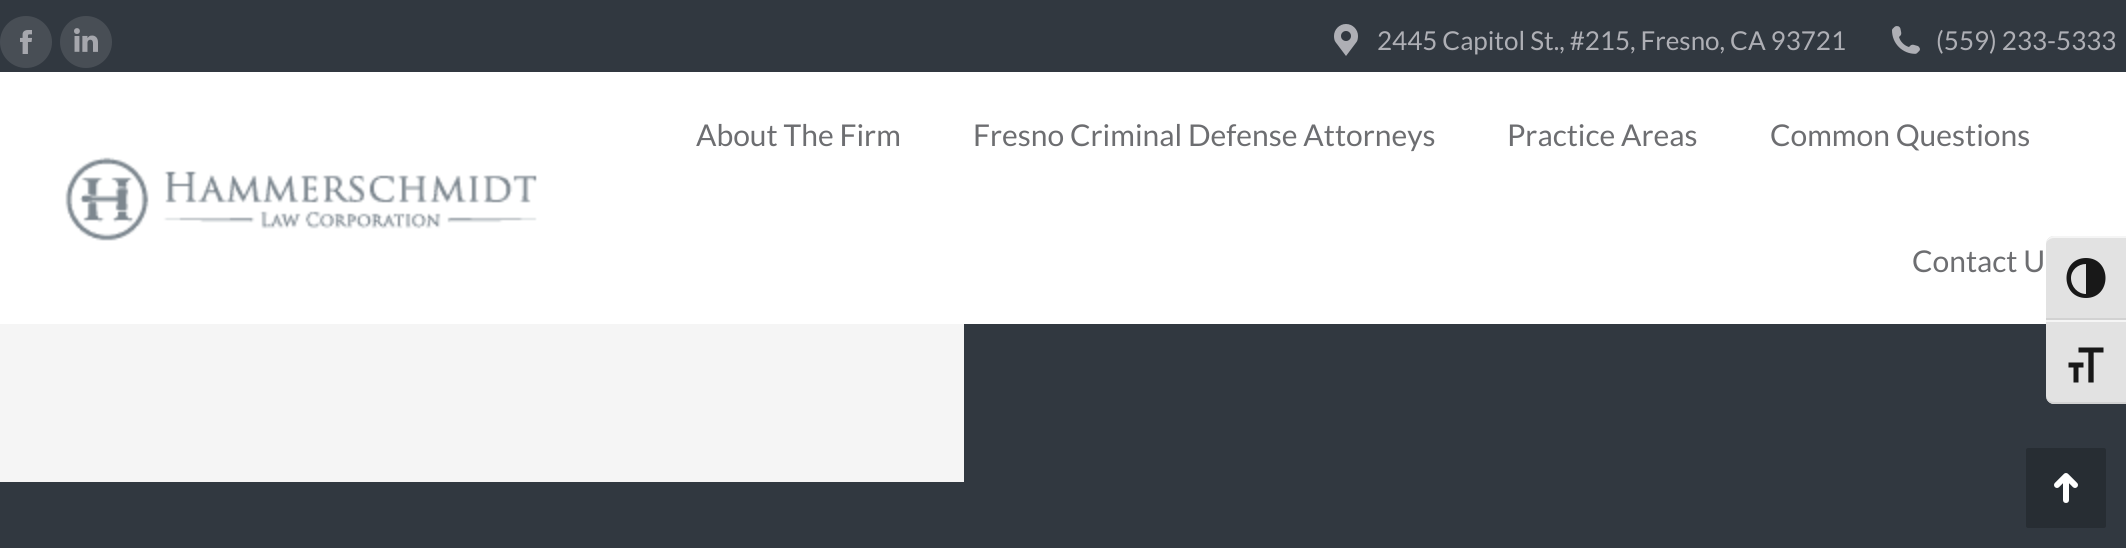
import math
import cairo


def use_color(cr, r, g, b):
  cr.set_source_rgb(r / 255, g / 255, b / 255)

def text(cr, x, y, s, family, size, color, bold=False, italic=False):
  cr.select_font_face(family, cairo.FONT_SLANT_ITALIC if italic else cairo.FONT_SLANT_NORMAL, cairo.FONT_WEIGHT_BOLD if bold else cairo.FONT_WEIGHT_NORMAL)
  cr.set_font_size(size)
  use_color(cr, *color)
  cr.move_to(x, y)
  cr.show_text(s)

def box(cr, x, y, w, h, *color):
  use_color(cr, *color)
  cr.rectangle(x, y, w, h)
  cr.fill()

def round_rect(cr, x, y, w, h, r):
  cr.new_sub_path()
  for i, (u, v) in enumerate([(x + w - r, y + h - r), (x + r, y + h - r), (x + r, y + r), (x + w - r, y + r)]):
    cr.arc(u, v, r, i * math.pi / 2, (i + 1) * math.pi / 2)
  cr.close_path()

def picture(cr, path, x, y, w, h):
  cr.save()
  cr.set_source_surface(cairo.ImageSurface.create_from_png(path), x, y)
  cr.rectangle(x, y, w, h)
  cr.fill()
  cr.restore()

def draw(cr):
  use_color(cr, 49, 56, 64)
  cr.paint()
  box(cr, 0, 72, 2126, 252, 255, 255, 255)
  use_color(cr, 72, 78, 85)
  cr.arc(26, 42, 26, 0, 2 * math.pi)
  cr.fill()
  picture(cr, "img_01.png", 20, 30, 12, 24)
  cr.arc(86, 42, 26, 0, 2 * math.pi)
  cr.fill()
  picture(cr, "img_02.png", 74, 28, 24, 24)
  picture(cr, "img_03.png", 1334, 24, 24, 32)
  picture(cr, "img_04.png", 1892, 26, 28, 28)
  picture(cr, "img_05.png", 65, 157, 472, 84)
  use_color(cr, 226, 226, 226)
  cr.new_path()
  cr.move_to(2054, 236)
  cr.line_to(2126, 236)
  cr.line_to(2126, 320)
  cr.line_to(2046, 320)
  cr.line_to(2046, 244)
  cr.curve_to(2046, 239.5, 2049.5, 236, 2054, 236)
  cr.close_path()
  cr.fill()
  use_color(cr, 245, 245, 245)
  cr.new_path()
  cr.move_to(2054, 238)
  cr.line_to(2126, 238)
  cr.line_to(2126, 236)
  cr.line_to(2054, 236)
  cr.curve_to(2050, 236, 2046, 240, 2046, 244)
  cr.curve_to(2046, 241, 2050, 238, 2054, 238)
  cr.close_path()
  cr.fill()
  box(cr, 2046, 318, 80, 2, 210, 210, 210)
  use_color(cr, 24, 24, 24)
  cr.new_path()
  cr.move_to(2086, 258)
  cr.curve_to(2060, 258, 2060, 298, 2086, 298)
  cr.curve_to(2112, 298, 2112, 258, 2086, 258)
  cr.close_path()
  cr.move_to(2071, 278)
  cr.curve_to(2071, 270, 2078, 264, 2086, 264)
  cr.line_to(2086, 294)
  cr.curve_to(2078, 294, 2071, 287, 2071, 278)
  cr.close_path()
  cr.fill()
  use_color(cr, 226, 226, 226)
  cr.new_path()
  cr.move_to(2046, 320)
  cr.line_to(2126, 320)
  cr.line_to(2126, 404)
  cr.line_to(2054, 404)
  cr.curve_to(2049.5, 404, 2046, 400.5, 2046, 396)
  cr.close_path()
  cr.fill()
  box(cr, 2046, 320, 80, 2, 245, 245, 245)
  use_color(cr, 210, 210, 210)
  cr.new_path()
  cr.move_to(2126, 404)
  cr.line_to(2126, 402)
  cr.line_to(2054, 402)
  cr.curve_to(2050, 402, 2046, 399, 2046, 396)
  cr.curve_to(2046, 400, 2050, 404, 2054, 404)
  cr.close_path()
  cr.fill()
  picture(cr, "img_06.png", 2068, 347, 36, 36)
  box(cr, 0, 324, 964, 158, 245, 245, 245)
  use_color(cr, 39, 45, 51)
  round_rect(cr, 2026, 448, 80, 80, 2)
  cr.fill()
  picture(cr, "img_07.png", 2054, 473, 24, 30)
  text(cr, 1377, 50, "2445 Capitol St., #215, Fresno, CA 93721", "Lato", 26, (174, 175, 181))
  text(cr, 1936, 50, "(559) 233-5333", "Lato", 26, (174, 175, 181))
  text(cr, 696, 146, "About The Firm", "Lato", 30, (109, 110, 113))
  text(cr, 973, 146, "Fresno Criminal Defense Attorneys", "Lato", 30, (109, 110, 113))
  text(cr, 1507, 146, "Practice Areas", "Lato", 30, (109, 110, 113))
  text(cr, 1770, 146, "Common Questions", "Lato", 30, (109, 110, 113))
  text(cr, 1912, 272, "Contact U", "Lato", 30, (109, 110, 113))


surface = cairo.ImageSurface(cairo.FORMAT_RGB24, 2126, 548)
cr = cairo.Context(surface)
options = cairo.FontOptions()
options.set_hint_metrics(cairo.HINT_METRICS_OFF)
options.set_hint_style(cairo.HINT_STYLE_NONE)
cr.set_font_options(options)
cr.set_miter_limit(4)
draw(cr)
surface.write_to_png("out.png")
